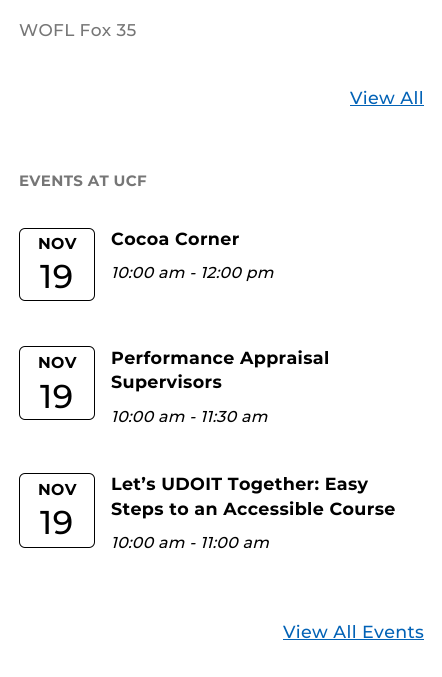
import math
import cairo


def use_color(cr, r, g, b):
  cr.set_source_rgb(r / 255, g / 255, b / 255)

def text(cr, x, y, s, family, size, color, bold=False, italic=False):
  cr.select_font_face(family, cairo.FONT_SLANT_ITALIC if italic else cairo.FONT_SLANT_NORMAL, cairo.FONT_WEIGHT_BOLD if bold else cairo.FONT_WEIGHT_NORMAL)
  cr.set_font_size(size)
  use_color(cr, *color)
  cr.move_to(x, y)
  cr.show_text(s)

def box(cr, x, y, w, h, *color):
  use_color(cr, *color)
  cr.rectangle(x, y, w, h)
  cr.fill()

def round_rect(cr, x, y, w, h, r):
  cr.new_sub_path()
  for i, (u, v) in enumerate([(x + w - r, y + h - r), (x + r, y + h - r), (x + r, y + r), (x + w - r, y + r)]):
    cr.arc(u, v, r, i * math.pi / 2, (i + 1) * math.pi / 2)
  cr.close_path()

def draw(cr):
  use_color(cr, 255, 255, 255)
  cr.paint()
  box(cr, 350, 105, 74, 1, 2, 98, 182)
  round_rect(cr, 19.5, 228.5, 75, 72, 5.5)
  use_color(cr, 0, 0, 0)
  cr.set_line_width(1)
  cr.stroke()
  round_rect(cr, 19.5, 346.5, 75, 73, 5.5)
  cr.stroke()
  round_rect(cr, 19.5, 473.5, 75, 74, 5.5)
  cr.stroke()
  box(cr, 283, 639, 141, 1, 2, 98, 182)
  text(cr, 19, 36, "WOFL Fox 35", "Montserrat Medium", 17, (118, 118, 118))
  text(cr, 350, 104, "View All", "Montserrat Medium", 17.5, (2, 98, 182))
  text(cr, 19, 186, "EVENTS AT UCF", "Montserrat", 15, (118, 118, 118), bold=True)
  text(cr, 38, 249, "NOV", "Montserrat", 15.75, (0, 0, 0), bold=True)
  text(cr, 40, 288, "19", "Montserrat Medium", 33, (0, 0, 0))
  text(cr, 111, 245, "Cocoa Corner", "Montserrat", 17.5, (0, 0, 0), bold=True)
  text(cr, 111, 278, "10:00 am - 12:00 pm", "Montserrat Medium", 15.75, (0, 0, 0), italic=True)
  text(cr, 38, 368, "NOV", "Montserrat", 15.75, (0, 0, 0), bold=True)
  text(cr, 40, 408, "19", "Montserrat Medium", 33, (0, 0, 0))
  text(cr, 111, 364, "Performance Appraisal", "Montserrat", 17.5, (0, 0, 0), bold=True)
  text(cr, 111, 388, "Supervisors", "Montserrat", 17.5, (0, 0, 0), bold=True)
  text(cr, 111, 422, "10:00 am - 11:30 am", "Montserrat Medium", 15.75, (0, 0, 0), italic=True)
  text(cr, 38, 495, "NOV", "Montserrat", 15.75, (0, 0, 0), bold=True)
  text(cr, 40, 534, "19", "Montserrat Medium", 33, (0, 0, 0))
  text(cr, 111, 490, "Let’s UDOIT Together: Easy", "Montserrat", 17.5, (0, 0, 0), bold=True)
  text(cr, 111, 515, "Steps to an Accessible Course", "Montserrat", 17.5, (0, 0, 0), bold=True)
  text(cr, 111, 548, "10:00 am - 11:00 am", "Montserrat Medium", 15.75, (0, 0, 0), italic=True)
  text(cr, 283, 638, "View All Events", "Montserrat Medium", 17.5, (2, 98, 182))


surface = cairo.ImageSurface(cairo.FORMAT_RGB24, 442, 677)
cr = cairo.Context(surface)
options = cairo.FontOptions()
options.set_hint_metrics(cairo.HINT_METRICS_OFF)
options.set_hint_style(cairo.HINT_STYLE_NONE)
cr.set_font_options(options)
cr.set_miter_limit(4)
draw(cr)
surface.write_to_png("out.png")
